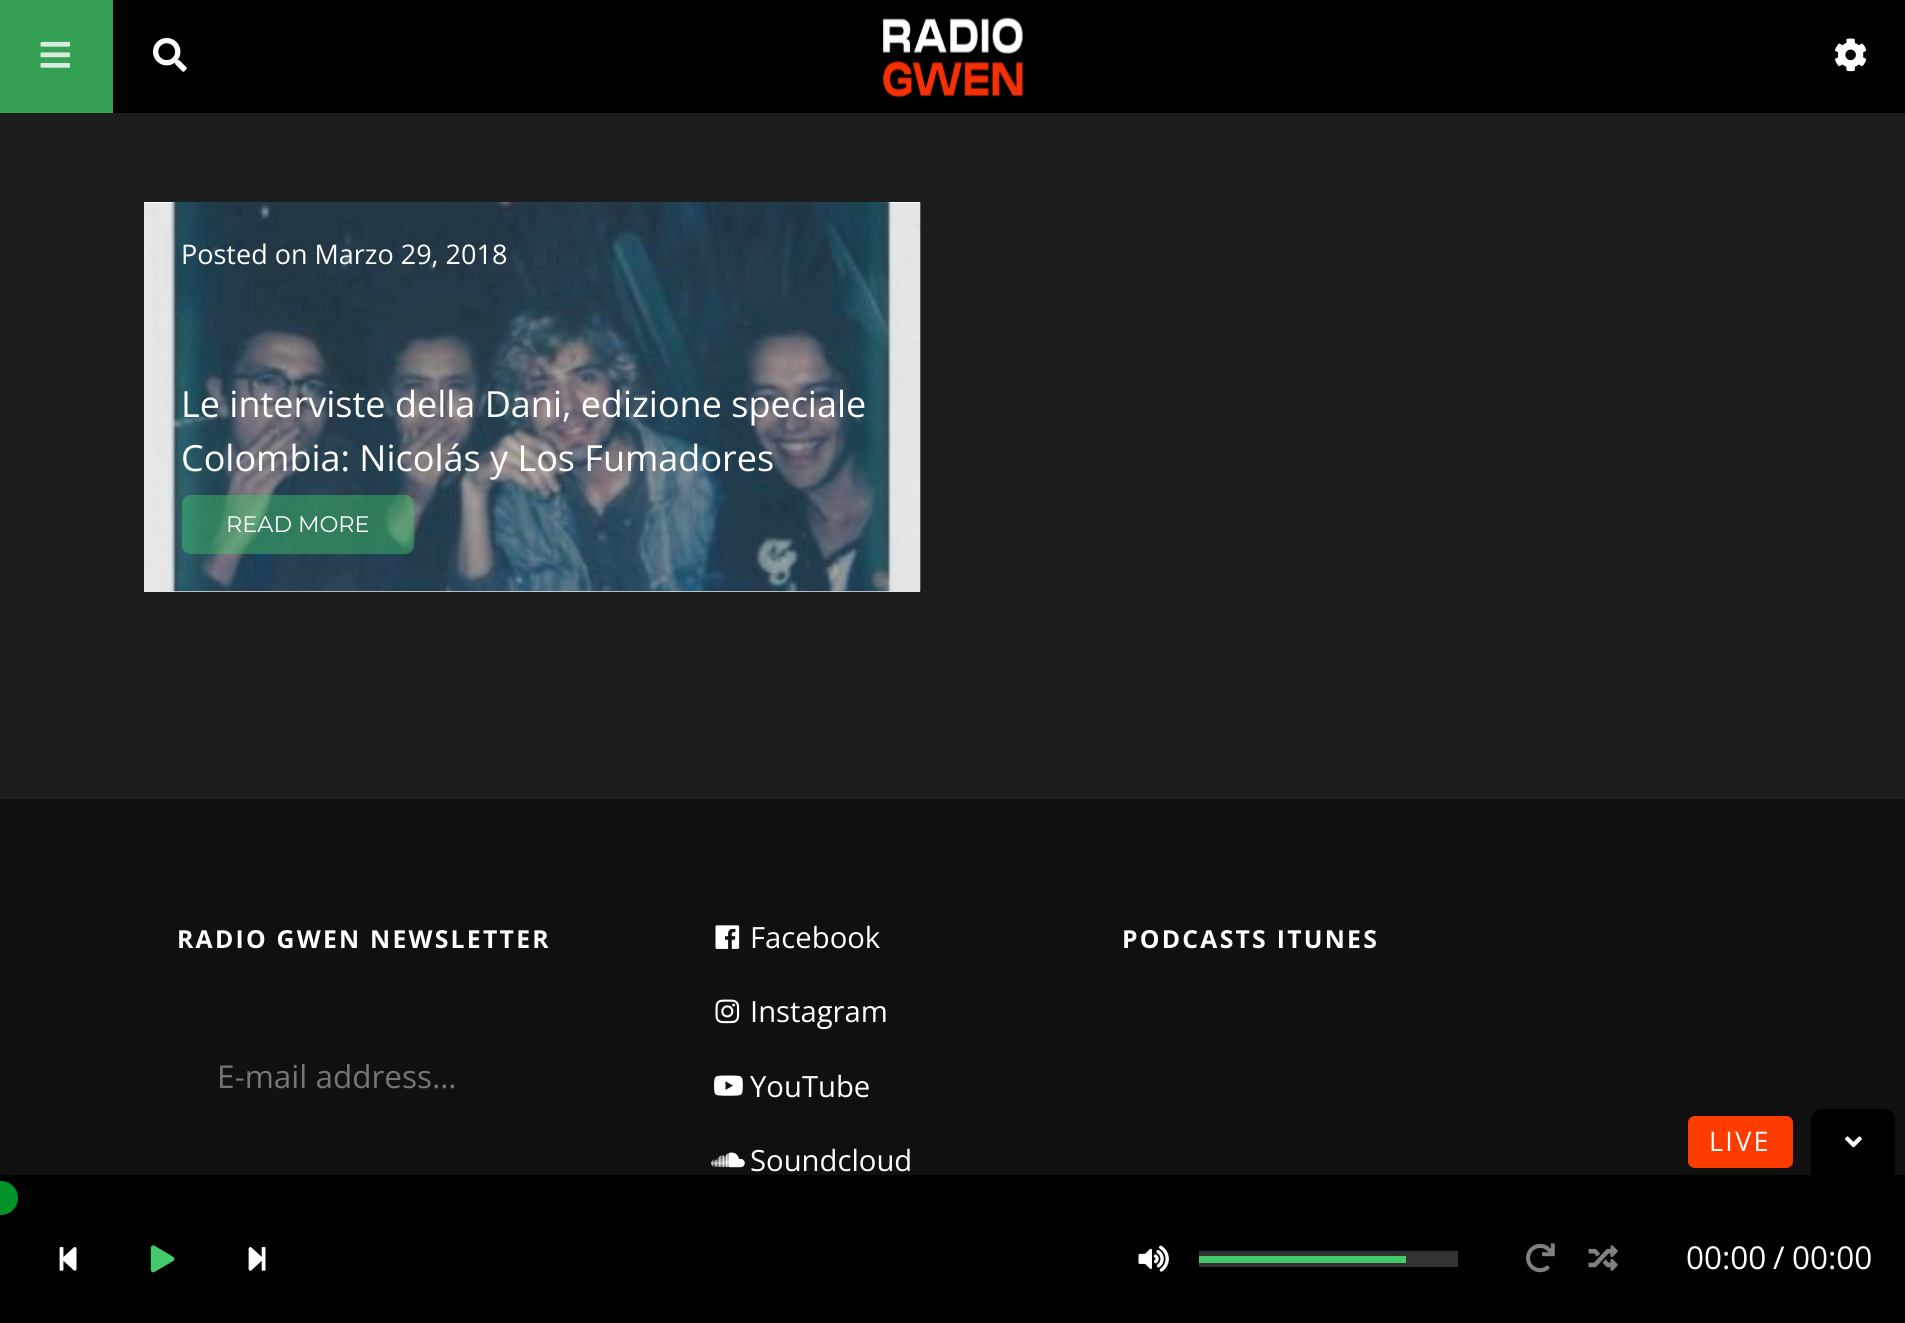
import math
import cairo


def use_color(cr, r, g, b):
  cr.set_source_rgb(r / 255, g / 255, b / 255)

def text(cr, x, y, s, family, size, color, bold=False, italic=False):
  cr.select_font_face(family, cairo.FONT_SLANT_ITALIC if italic else cairo.FONT_SLANT_NORMAL, cairo.FONT_WEIGHT_BOLD if bold else cairo.FONT_WEIGHT_NORMAL)
  cr.set_font_size(size)
  use_color(cr, *color)
  cr.move_to(x, y)
  cr.show_text(s)

def spaced_text(cr, x, y, s, letter, word):
  cr.move_to(x, y)
  for ch in s:
    cr.show_text(ch)
    cr.rel_move_to(letter + word * (ch == ' '), 0)

def box(cr, x, y, w, h, *color):
  use_color(cr, *color)
  cr.rectangle(x, y, w, h)
  cr.fill()

def round_rect(cr, x, y, w, h, r):
  cr.new_sub_path()
  for i, (u, v) in enumerate([(x + w - r, y + h - r), (x + r, y + h - r), (x + r, y + r), (x + w - r, y + r)]):
    cr.arc(u, v, r, i * math.pi / 2, (i + 1) * math.pi / 2)
  cr.close_path()

def picture(cr, path, x, y, w, h):
  cr.save()
  cr.set_source_surface(cairo.ImageSurface.create_from_png(path), x, y)
  cr.rectangle(x, y, w, h)
  cr.fill()
  cr.restore()

def draw(cr):
  use_color(cr, 28, 28, 28)
  cr.paint()
  box(cr, 0, 0, 113, 113, 53, 161, 84)
  picture(cr, "img_01.png", 40, 41, 31, 27)
  box(cr, 113, 0, 1792, 113, 0, 0, 0)
  picture(cr, "img_02.png", 153, 38, 34, 34)
  picture(cr, "img_03.png", 1835, 38, 32, 34)
  picture(cr, "img_04.png", 883, 17, 140, 80)
  box(cr, 144, 591, 776, 1, 232, 232, 232)
  picture(cr, "img_05.png", 144, 202, 777, 390)
  cr.set_source_rgba(0.259, 0.788, 0.412, 0.45)
  round_rect(cr, 182, 495, 232, 59, 9)
  cr.fill()
  box(cr, 0, 799, 1905, 376, 16, 16, 16)
  picture(cr, "img_06.png", 715, 925, 25, 24)
  picture(cr, "img_07.png", 715, 999, 25, 25)
  picture(cr, "img_08.png", 714, 1075, 29, 21)
  picture(cr, "img_09.png", 711, 1152, 34, 16)
  box(cr, 0, 1175, 1905, 148, 0, 0, 0)
  box(cr, 1688, 1118, 105, 48, 25, 25, 25)
  use_color(cr, 255, 60, 0)
  round_rect(cr, 1688, 1116, 105, 52, 7)
  cr.fill()
  use_color(cr, 0, 0, 0)
  cr.new_path()
  cr.move_to(1822, 1109)
  cr.line_to(1884, 1109)
  cr.curve_to(1890, 1109, 1895, 1114, 1895, 1120)
  cr.line_to(1895, 1175)
  cr.line_to(1811, 1175)
  cr.line_to(1811, 1120)
  cr.curve_to(1811, 1114, 1816, 1109, 1822, 1109)
  cr.close_path()
  cr.fill()
  picture(cr, "img_10.png", 1845, 1136, 17, 12)
  use_color(cr, 1, 147, 42)
  cr.arc(1, 1198, 17, 0, 2 * math.pi)
  cr.fill()
  picture(cr, "img_11.png", 59, 1247, 18, 24)
  picture(cr, "img_12.png", 150, 1245, 25, 28)
  picture(cr, "img_13.png", 248, 1247, 18, 24)
  picture(cr, "img_14.png", 1138, 1245, 31, 27)
  box(cr, 1199, 1251, 259, 16, 51, 51, 51)
  box(cr, 1199, 1256, 207, 7, 66, 201, 105)
  picture(cr, "img_15.png", 1526, 1243, 29, 30)
  picture(cr, "img_16.png", 1588, 1245, 30, 26)
  text(cr, 181, 264, "Posted on Marzo 29, 2018", "Open Sans", 27, (255, 255, 255))
  text(cr, 181, 417, "Le interviste della Dani, edizione speciale", "Open Sans", 36, (255, 255, 255))
  text(cr, 181, 471, "Colombia: Nicolás y Los Fumadores", "Open Sans", 36, (255, 255, 255))
  text(cr, 226, 532, "READ MORE", "Montserrat", 22.5, (255, 255, 255))
  cr.select_font_face("Open Sans", cairo.FONT_SLANT_NORMAL, cairo.FONT_WEIGHT_BOLD)
  cr.set_font_size(24.75)
  spaced_text(cr, 177, 948, "RADIO GWEN NEWSLETTER", 2.25, 0)
  text(cr, 217, 1088, "E-mail address…", "Open Sans", 31.5, (117, 117, 117))
  text(cr, 750, 948, "Facebook", "Open Sans", 29.25, (255, 255, 255))
  text(cr, 750, 1022, "Instagram", "Open Sans", 29.25, (255, 255, 255))
  text(cr, 750, 1097, "YouTube", "Open Sans", 29.25, (255, 255, 255))
  text(cr, 750, 1171, "Soundcloud", "Open Sans", 29.25, (255, 255, 255))
  cr.select_font_face("Open Sans", cairo.FONT_SLANT_NORMAL, cairo.FONT_WEIGHT_BOLD)
  cr.set_font_size(24.75)
  spaced_text(cr, 1122, 948, "PODCASTS ITUNES", 2.25, 0)
  cr.select_font_face("Open Sans")
  cr.set_font_size(27)
  spaced_text(cr, 1709, 1151, "LIVE", 2.25, 0)
  text(cr, 1686, 1269, "00:00", "Open Sans", 31.5, (255, 255, 255))
  text(cr, 1773, 1269, "/", "Open Sans", 31.5, (255, 255, 255))
  text(cr, 1792, 1269, "00:00", "Open Sans", 31.5, (255, 255, 255))


surface = cairo.ImageSurface(cairo.FORMAT_RGB24, 1905, 1323)
cr = cairo.Context(surface)
options = cairo.FontOptions()
options.set_hint_metrics(cairo.HINT_METRICS_OFF)
options.set_hint_style(cairo.HINT_STYLE_NONE)
cr.set_font_options(options)
cr.set_miter_limit(4)
draw(cr)
surface.write_to_png("out.png")
